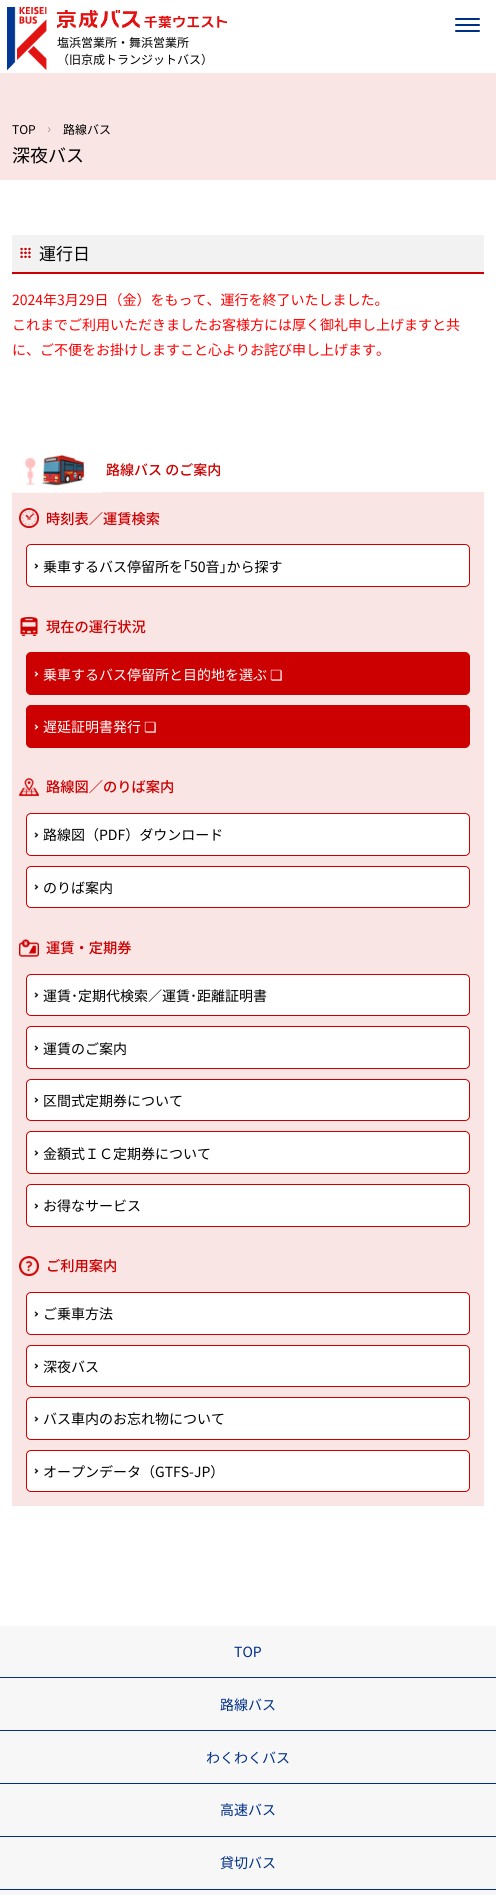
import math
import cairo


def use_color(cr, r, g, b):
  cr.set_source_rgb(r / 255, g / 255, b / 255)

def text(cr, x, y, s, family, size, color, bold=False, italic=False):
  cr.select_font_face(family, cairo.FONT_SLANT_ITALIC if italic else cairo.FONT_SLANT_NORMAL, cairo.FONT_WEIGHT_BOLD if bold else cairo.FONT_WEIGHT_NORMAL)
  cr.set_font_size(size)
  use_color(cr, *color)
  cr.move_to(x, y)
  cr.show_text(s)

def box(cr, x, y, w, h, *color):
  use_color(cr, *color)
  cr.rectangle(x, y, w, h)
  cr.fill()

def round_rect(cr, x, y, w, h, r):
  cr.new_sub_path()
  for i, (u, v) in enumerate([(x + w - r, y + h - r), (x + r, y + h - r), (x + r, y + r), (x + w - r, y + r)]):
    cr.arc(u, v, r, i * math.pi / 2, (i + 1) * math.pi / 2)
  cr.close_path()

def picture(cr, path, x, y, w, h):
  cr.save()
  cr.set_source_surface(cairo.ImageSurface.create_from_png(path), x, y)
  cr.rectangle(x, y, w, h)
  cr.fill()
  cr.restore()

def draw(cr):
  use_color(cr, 255, 255, 255)
  cr.paint()
  use_color(cr, 0, 47, 134)
  round_rect(cr, 455, 18, 25, 2, 1)
  cr.fill()
  round_rect(cr, 455, 24, 25, 2, 1)
  cr.fill()
  round_rect(cr, 455, 30, 25, 2, 1)
  cr.fill()
  picture(cr, "img_01.png", 7, 7, 40, 63)
  picture(cr, "img_02.png", 57, 10, 170, 18)
  box(cr, 0, 73, 496, 107, 250, 229, 229)
  picture(cr, "img_03.png", 48, 127, 3, 6)
  box(cr, 12, 235, 472, 37, 242, 242, 242)
  box(cr, 12, 272, 472, 2, 204, 0, 0)
  picture(cr, "img_04.png", 19, 246, 13, 14)
  box(cr, 12, 492, 472, 1014, 250, 229, 229)
  picture(cr, "img_05.png", 12, 455, 90, 38)
  picture(cr, "img_06.png", 19, 508, 20, 21)
  use_color(cr, 255, 255, 255)
  round_rect(cr, 26.5, 544.5, 443, 42, 4.5)
  cr.fill_preserve()
  use_color(cr, 204, 0, 0)
  cr.set_line_width(1)
  cr.stroke()
  picture(cr, "img_07.png", 34, 563, 5, 6)
  picture(cr, "img_08.png", 20, 617, 18, 20)
  round_rect(cr, 26.5, 652.5, 443, 42, 4.5)
  cr.fill_preserve()
  cr.stroke()
  picture(cr, "img_09.png", 34, 671, 5, 6)
  round_rect(cr, 26.5, 705.5, 443, 42, 4.5)
  cr.fill_preserve()
  cr.stroke()
  picture(cr, "img_09.png", 34, 724, 5, 6)
  picture(cr, "img_10.png", 19, 778, 20, 19)
  use_color(cr, 255, 255, 255)
  round_rect(cr, 26.5, 813.5, 443, 42, 4.5)
  cr.fill_preserve()
  use_color(cr, 204, 0, 0)
  cr.stroke()
  picture(cr, "img_07.png", 34, 832, 5, 6)
  use_color(cr, 255, 255, 255)
  round_rect(cr, 26.5, 866.5, 443, 41, 4.5)
  cr.fill_preserve()
  use_color(cr, 204, 0, 0)
  cr.stroke()
  picture(cr, "img_07.png", 34, 884, 5, 6)
  picture(cr, "img_11.png", 19, 939, 20, 18)
  use_color(cr, 255, 255, 255)
  round_rect(cr, 26.5, 974.5, 443, 41, 4.5)
  cr.fill_preserve()
  use_color(cr, 204, 0, 0)
  cr.stroke()
  picture(cr, "img_07.png", 34, 992, 5, 6)
  use_color(cr, 255, 255, 255)
  round_rect(cr, 26.5, 1026.5, 443, 42, 4.5)
  cr.fill_preserve()
  use_color(cr, 204, 0, 0)
  cr.stroke()
  picture(cr, "img_07.png", 34, 1045, 5, 6)
  use_color(cr, 255, 255, 255)
  round_rect(cr, 26.5, 1079.5, 443, 41, 4.5)
  cr.fill_preserve()
  use_color(cr, 204, 0, 0)
  cr.stroke()
  picture(cr, "img_07.png", 34, 1097, 5, 6)
  use_color(cr, 255, 255, 255)
  round_rect(cr, 26.5, 1131.5, 443, 42, 4.5)
  cr.fill_preserve()
  use_color(cr, 204, 0, 0)
  cr.stroke()
  picture(cr, "img_07.png", 34, 1150, 5, 6)
  use_color(cr, 255, 255, 255)
  round_rect(cr, 26.5, 1184.5, 443, 42, 4.5)
  cr.fill_preserve()
  use_color(cr, 204, 0, 0)
  cr.stroke()
  picture(cr, "img_07.png", 34, 1203, 5, 6)
  picture(cr, "img_12.png", 19, 1256, 20, 21)
  use_color(cr, 255, 255, 255)
  round_rect(cr, 26.5, 1292.5, 443, 42, 4.5)
  cr.fill_preserve()
  use_color(cr, 204, 0, 0)
  cr.stroke()
  picture(cr, "img_07.png", 34, 1311, 5, 6)
  use_color(cr, 255, 255, 255)
  round_rect(cr, 26.5, 1345.5, 443, 41, 4.5)
  cr.fill_preserve()
  use_color(cr, 204, 0, 0)
  cr.stroke()
  picture(cr, "img_07.png", 34, 1363, 5, 6)
  use_color(cr, 255, 255, 255)
  round_rect(cr, 26.5, 1397.5, 443, 42, 4.5)
  cr.fill_preserve()
  use_color(cr, 204, 0, 0)
  cr.stroke()
  picture(cr, "img_07.png", 34, 1416, 5, 6)
  use_color(cr, 255, 255, 255)
  round_rect(cr, 26.5, 1450.5, 443, 41, 4.5)
  cr.fill_preserve()
  use_color(cr, 204, 0, 0)
  cr.stroke()
  picture(cr, "img_07.png", 34, 1468, 5, 6)
  box(cr, 0, 1626, 496, 269, 247, 247, 247)
  box(cr, 0, 1677, 496, 1, 0, 47, 134)
  box(cr, 0, 1730, 496, 1, 0, 47, 134)
  box(cr, 0, 1783, 496, 1, 0, 47, 134)
  box(cr, 0, 1836, 496, 1, 0, 47, 134)
  box(cr, 0, 1889, 496, 1, 0, 47, 134)
  text(cr, 57, 47, "塩浜営業所・舞浜営業所", "Noto Sans JP", 12, (0, 0, 0))
  text(cr, 57, 64, "（旧京成トランジットバス）", "Noto Sans JP", 12, (0, 0, 0))
  text(cr, 12, 134, "TOP", "Noto Sans JP", 12, (0, 0, 0))
  text(cr, 63, 134, "路線バス", "Noto Sans JP", 12, (0, 0, 0))
  text(cr, 12, 162, "深夜バス", "Noto Sans JP", 18, (0, 0, 0))
  text(cr, 39, 260, "運行日", "Noto Sans JP", 17, (0, 0, 0))
  text(cr, 12, 305, "2024年3月29日（金）をもって、運行を終了いたしました。", "Noto Sans JP", 14, (255, 0, 0))
  text(cr, 12, 330, "これまでご利用いただきましたお客様方には厚く御礼申し上げますと共", "Noto Sans JP", 14, (255, 0, 0))
  text(cr, 12, 355, "に、ご不便をお掛けしますこと心よりお詫び申し上げます。", "Noto Sans JP", 14, (255, 0, 0))
  text(cr, 106, 475, "路線バス のご案内", "Noto Sans JP Medium", 14, (204, 0, 0))
  text(cr, 46, 524, "時刻表／運賃検索", "Noto Sans JP Medium", 14.25, (204, 0, 0))
  text(cr, 43, 572, "乗車するバス停留所を｢50音｣から探す", "Noto Sans JP", 14, (0, 0, 0))
  text(cr, 46, 632, "現在の運行状況", "Noto Sans JP Medium", 14.25, (204, 0, 0))
  text(cr, 43, 680, "乗車するバス停留所と目的地を選ぶ", "Noto Sans JP", 14, (255, 255, 255))
  text(cr, 270, 680, "❏", "DejaVu Sans", 14, (255, 255, 255))
  text(cr, 43, 732, "遅延証明書発行", "Noto Sans JP", 14, (255, 255, 255))
  text(cr, 144, 732, "❏", "DejaVu Sans", 14, (255, 255, 255))
  text(cr, 46, 792, "路線図／のりば案内", "Noto Sans JP Medium", 14.25, (204, 0, 0))
  text(cr, 43, 840, "路線図（PDF）ダウンロード", "Noto Sans JP", 14, (0, 0, 0))
  text(cr, 43, 893, "のりば案内", "Noto Sans JP", 14, (0, 0, 0))
  text(cr, 46, 953, "運賃・定期券", "Noto Sans JP Medium", 14.25, (204, 0, 0))
  text(cr, 43, 1001, "運賃･定期代検索／運賃･距離証明書", "Noto Sans JP", 14, (0, 0, 0))
  text(cr, 43, 1054, "運賃のご案内", "Noto Sans JP", 14, (0, 0, 0))
  text(cr, 43, 1106, "区間式定期券について", "Noto Sans JP", 14, (0, 0, 0))
  text(cr, 43, 1159, "金額式ＩＣ定期券について", "Noto Sans JP", 14, (0, 0, 0))
  text(cr, 43, 1211, "お得なサービス", "Noto Sans JP", 14, (0, 0, 0))
  text(cr, 46, 1271, "ご利用案内", "Noto Sans JP Medium", 14.25, (204, 0, 0))
  text(cr, 43, 1319, "ご乗車方法", "Noto Sans JP", 14, (0, 0, 0))
  text(cr, 43, 1372, "深夜バス", "Noto Sans JP", 14, (0, 0, 0))
  text(cr, 43, 1424, "バス車内のお忘れ物について", "Noto Sans JP", 14, (0, 0, 0))
  text(cr, 43, 1477, "オープンデータ（GTFS-JP）", "Noto Sans JP", 14, (0, 0, 0))
  text(cr, 234, 1657, "TOP", "Noto Sans JP", 14, (0, 47, 134))
  text(cr, 220, 1710, "路線バス", "Noto Sans JP", 14, (0, 47, 134))
  text(cr, 206, 1763, "わくわくバス", "Noto Sans JP", 14, (0, 47, 134))
  text(cr, 220, 1815, "高速バス", "Noto Sans JP", 14, (0, 47, 134))
  text(cr, 220, 1868, "貸切バス", "Noto Sans JP", 14, (0, 47, 134))


surface = cairo.ImageSurface(cairo.FORMAT_RGB24, 496, 1895)
cr = cairo.Context(surface)
options = cairo.FontOptions()
options.set_hint_metrics(cairo.HINT_METRICS_OFF)
options.set_hint_style(cairo.HINT_STYLE_NONE)
cr.set_font_options(options)
cr.set_miter_limit(4)
draw(cr)
surface.write_to_png("out.png")
